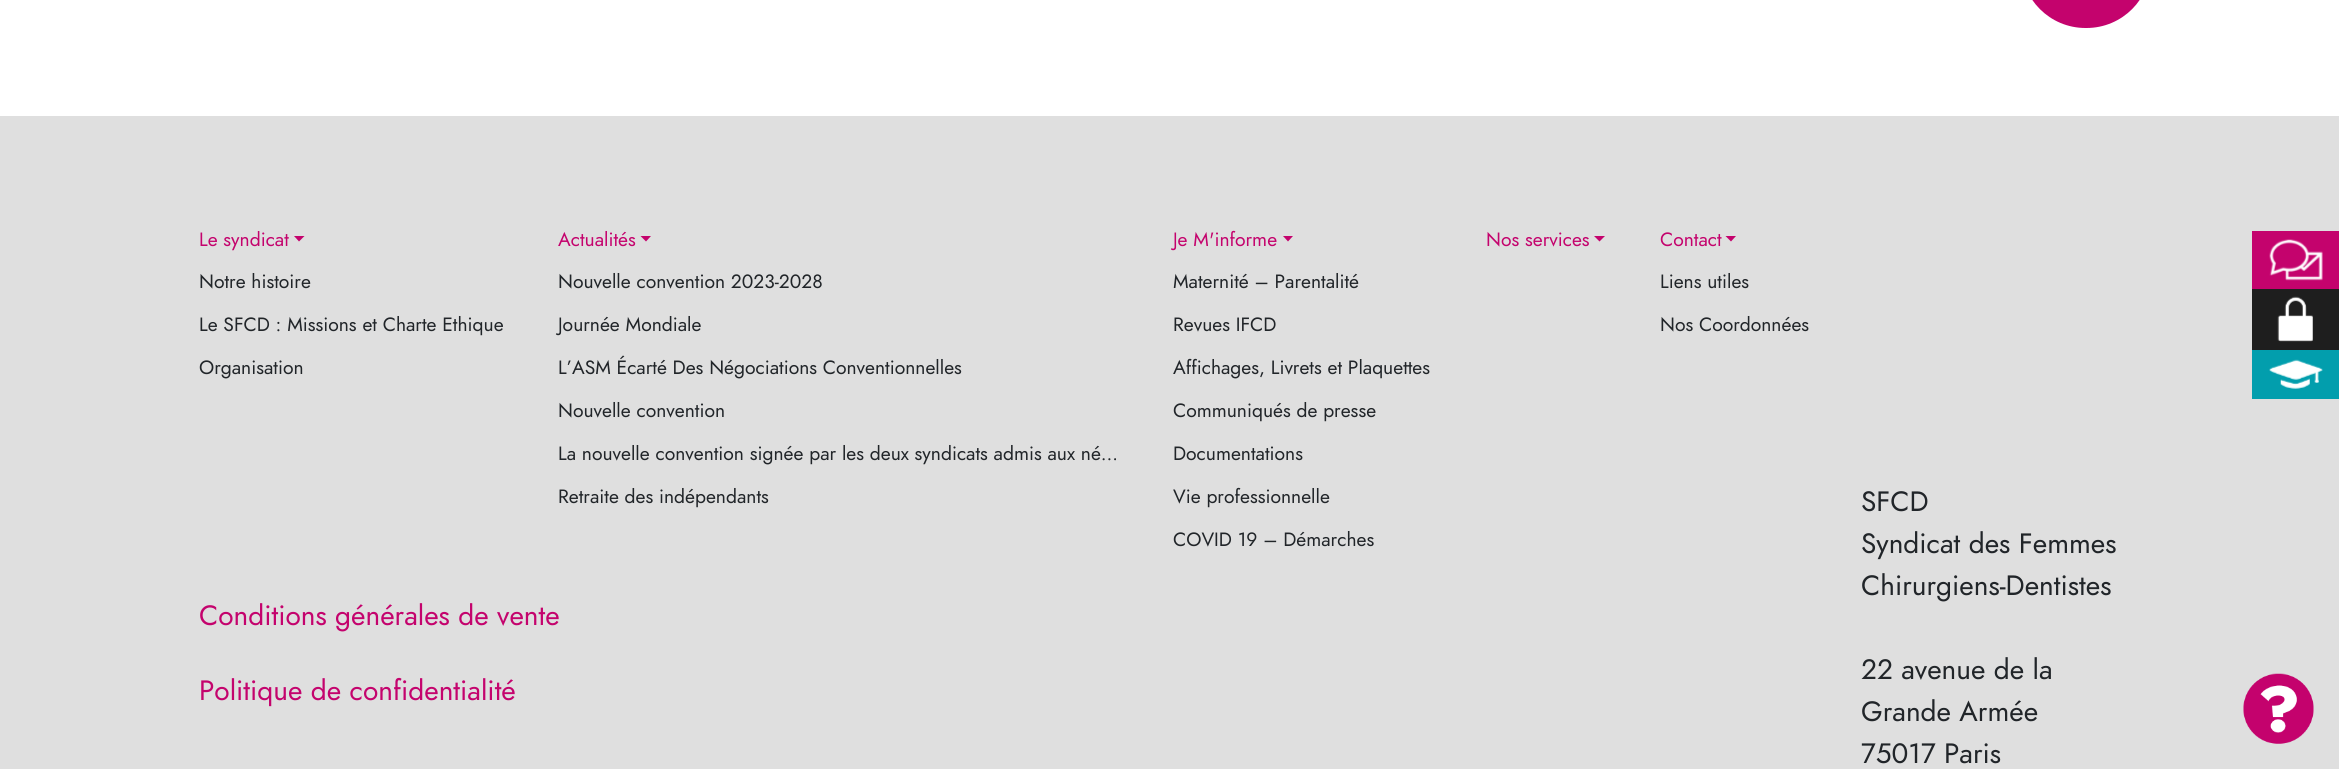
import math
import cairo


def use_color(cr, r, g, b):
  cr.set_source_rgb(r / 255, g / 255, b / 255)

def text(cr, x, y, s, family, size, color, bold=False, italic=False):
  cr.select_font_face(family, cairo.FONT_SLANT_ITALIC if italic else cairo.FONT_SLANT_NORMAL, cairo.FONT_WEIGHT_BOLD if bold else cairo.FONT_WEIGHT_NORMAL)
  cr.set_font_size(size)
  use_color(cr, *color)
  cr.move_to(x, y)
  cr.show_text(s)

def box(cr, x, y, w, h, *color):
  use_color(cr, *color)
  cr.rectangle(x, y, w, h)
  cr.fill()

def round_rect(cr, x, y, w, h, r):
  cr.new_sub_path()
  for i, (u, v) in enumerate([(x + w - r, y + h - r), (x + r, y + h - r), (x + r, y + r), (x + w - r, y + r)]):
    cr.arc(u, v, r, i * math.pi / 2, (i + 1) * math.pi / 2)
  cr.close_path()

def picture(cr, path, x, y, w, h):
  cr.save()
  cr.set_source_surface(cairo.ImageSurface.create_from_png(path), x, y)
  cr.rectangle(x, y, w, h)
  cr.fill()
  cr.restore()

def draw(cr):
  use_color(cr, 255, 255, 255)
  cr.paint()
  use_color(cr, 196, 3, 109)
  round_rect(cr, 2021, -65, 130, 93, 64.5)
  cr.fill()
  box(cr, 0, 116, 2339, 653, 223, 223, 223)
  use_color(cr, 196, 3, 109)
  cr.new_path()
  cr.move_to(294, 236)
  cr.line_to(304.5, 236)
  cr.line_to(299, 241.5)
  cr.close_path()
  cr.fill()
  cr.new_path()
  cr.move_to(640.5, 236)
  cr.line_to(651, 236)
  cr.line_to(646, 241.5)
  cr.close_path()
  cr.fill()
  cr.new_path()
  cr.move_to(1283, 236)
  cr.line_to(1293, 236)
  cr.line_to(1288, 241.5)
  cr.close_path()
  cr.fill()
  cr.new_path()
  cr.move_to(1594, 236)
  cr.line_to(1605, 236)
  cr.line_to(1599.5, 241.5)
  cr.close_path()
  cr.fill()
  cr.new_path()
  cr.move_to(1725.5, 236)
  cr.line_to(1736, 236)
  cr.line_to(1731, 241.5)
  cr.close_path()
  cr.fill()
  box(cr, 2252, 231, 87, 58, 196, 3, 109)
  picture(cr, "img_01.png", 2269, 239, 54, 42)
  box(cr, 2252, 289, 87, 61, 30, 30, 30)
  picture(cr, "img_02.png", 2277, 296, 36, 46)
  box(cr, 2252, 350, 87, 49, 2, 158, 173)
  picture(cr, "img_03.png", 2269, 359, 54, 30)
  picture(cr, "img_04.png", 2243, 673, 71, 71)
  text(cr, 199, 246, "Le syndicat", "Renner", 19.25, (196, 3, 109))
  text(cr, 199, 288, "Notre histoire", "Renner", 19.25, (33, 37, 41))
  text(cr, 199, 331, "Le SFCD : Missions et Charte Ethique", "Renner", 19.25, (33, 37, 41))
  text(cr, 199, 374, "Organisation", "Renner", 19.25, (33, 37, 41))
  text(cr, 558, 246, "Actualités", "Renner", 19.25, (196, 3, 109))
  text(cr, 558, 288, "Nouvelle convention 2023-2028", "Renner", 19.25, (33, 37, 41))
  text(cr, 558, 331, "Journée Mondiale", "Renner", 19.25, (33, 37, 41))
  text(cr, 558, 374, "L’ASM Écarté Des Négociations Conventionnelles", "Renner", 19.25, (33, 37, 41))
  text(cr, 558, 417, "Nouvelle convention", "Renner", 19.25, (33, 37, 41))
  text(cr, 558, 460, "La nouvelle convention signée par les deux syndicats admis aux né...", "Renner", 19.25, (33, 37, 41))
  text(cr, 558, 503, "Retraite des indépendants", "Renner", 19.25, (33, 37, 41))
  text(cr, 1173, 246, "Je M'informe", "Renner", 19.25, (196, 3, 109))
  text(cr, 1173, 288, "Maternité – Parentalité", "Renner", 19.25, (33, 37, 41))
  text(cr, 1173, 331, "Revues IFCD", "Renner", 19.25, (33, 37, 41))
  text(cr, 1173, 374, "Affichages, Livrets et Plaquettes", "Renner", 19.25, (33, 37, 41))
  text(cr, 1173, 417, "Communiqués de presse", "Renner", 19.25, (33, 37, 41))
  text(cr, 1173, 460, "Documentations", "Renner", 19.25, (33, 37, 41))
  text(cr, 1173, 503, "Vie professionnelle", "Renner", 19.25, (33, 37, 41))
  text(cr, 1173, 546, "COVID 19 – Démarches", "Renner", 19.25, (33, 37, 41))
  text(cr, 1486, 246, "Nos services", "Renner", 19.25, (196, 3, 109))
  text(cr, 1660, 246, "Contact", "Renner", 19.25, (196, 3, 109))
  text(cr, 1660, 288, "Liens utiles", "Renner", 19.25, (33, 37, 41))
  text(cr, 1660, 331, "Nos Coordonnées", "Renner", 19.25, (33, 37, 41))
  text(cr, 199, 625, "Conditions générales de vente", "Renner", 28, (196, 3, 109))
  text(cr, 199, 700, "Politique de confidentialité", "Renner", 28, (196, 3, 109))
  text(cr, 1861, 511, "SFCD", "Renner", 28, (33, 37, 41))
  text(cr, 1861, 553, "Syndicat des Femmes", "Renner", 28, (33, 37, 41))
  text(cr, 1861, 595, "Chirurgiens-Dentistes", "Renner", 28, (33, 37, 41))
  text(cr, 1861, 679, "22 avenue de la", "Renner", 28, (33, 37, 41))
  text(cr, 1861, 721, "Grande Armée", "Renner", 28, (33, 37, 41))
  text(cr, 1861, 763, "75017 Paris", "Renner", 28, (33, 37, 41))


surface = cairo.ImageSurface(cairo.FORMAT_RGB24, 2339, 769)
cr = cairo.Context(surface)
options = cairo.FontOptions()
options.set_hint_metrics(cairo.HINT_METRICS_OFF)
options.set_hint_style(cairo.HINT_STYLE_NONE)
cr.set_font_options(options)
cr.set_miter_limit(4)
draw(cr)
surface.write_to_png("out.png")
